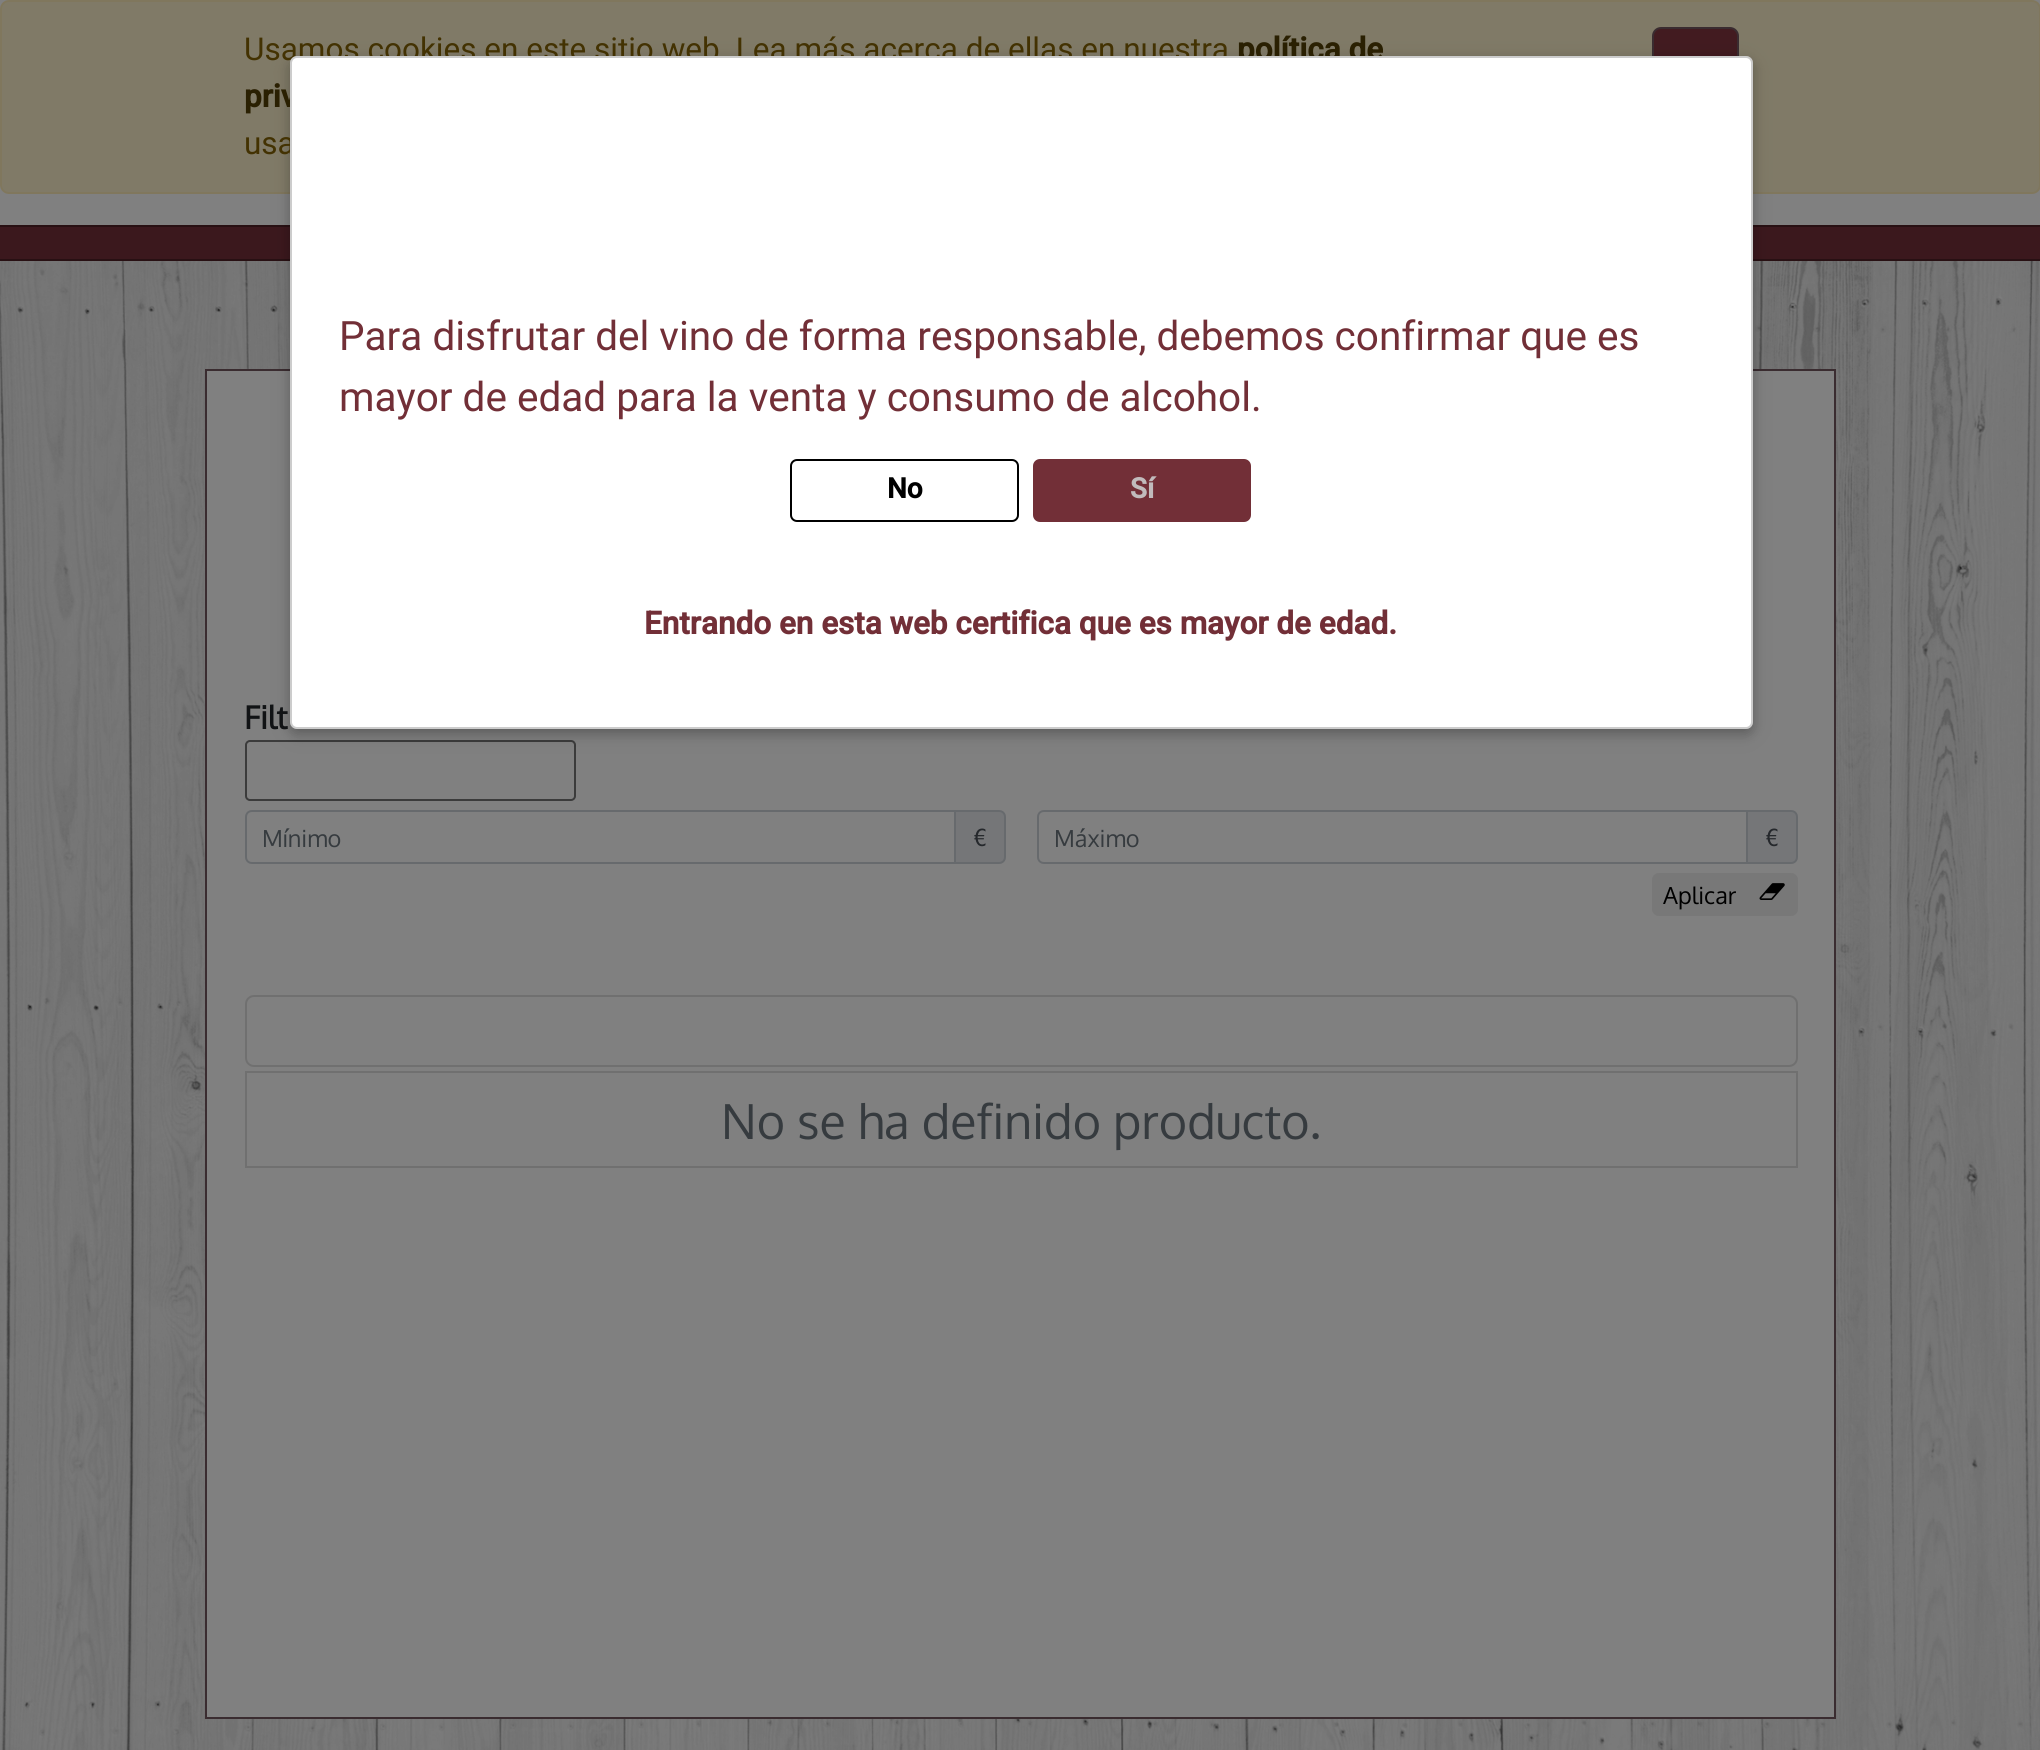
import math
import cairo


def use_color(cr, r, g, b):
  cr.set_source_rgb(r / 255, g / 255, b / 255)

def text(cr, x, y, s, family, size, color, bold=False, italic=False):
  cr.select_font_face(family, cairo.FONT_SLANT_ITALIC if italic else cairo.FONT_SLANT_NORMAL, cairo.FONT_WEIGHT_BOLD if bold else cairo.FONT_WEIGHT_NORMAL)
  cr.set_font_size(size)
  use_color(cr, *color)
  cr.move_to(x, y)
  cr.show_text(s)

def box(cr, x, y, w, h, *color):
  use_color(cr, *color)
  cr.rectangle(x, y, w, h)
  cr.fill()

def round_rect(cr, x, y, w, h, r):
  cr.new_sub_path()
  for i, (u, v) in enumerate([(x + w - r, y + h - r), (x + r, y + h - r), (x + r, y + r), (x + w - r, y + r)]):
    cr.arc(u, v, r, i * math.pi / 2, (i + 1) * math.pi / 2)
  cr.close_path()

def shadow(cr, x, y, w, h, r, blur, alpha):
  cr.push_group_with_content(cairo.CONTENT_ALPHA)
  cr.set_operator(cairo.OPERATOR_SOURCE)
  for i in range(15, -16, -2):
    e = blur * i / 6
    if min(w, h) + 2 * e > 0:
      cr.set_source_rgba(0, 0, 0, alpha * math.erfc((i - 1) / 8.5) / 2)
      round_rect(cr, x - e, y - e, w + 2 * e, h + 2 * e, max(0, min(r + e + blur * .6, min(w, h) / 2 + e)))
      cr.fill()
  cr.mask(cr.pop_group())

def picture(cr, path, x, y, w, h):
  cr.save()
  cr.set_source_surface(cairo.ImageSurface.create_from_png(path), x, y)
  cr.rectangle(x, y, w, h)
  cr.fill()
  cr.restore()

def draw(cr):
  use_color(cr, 128, 128, 128)
  cr.paint()
  use_color(cr, 128, 122, 103)
  round_rect(cr, 1, 1, 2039, 192, 8)
  cr.fill_preserve()
  use_color(cr, 128, 119, 93)
  cr.stroke()
  use_color(cr, 66, 27, 32)
  round_rect(cr, 1653, 28, 85, 66, 8)
  cr.fill_preserve()
  use_color(cr, 58, 44, 48)
  cr.stroke()
  box(cr, 0, 227, 2040, 32, 59, 24, 29)
  box(cr, 0, 225, 2040, 2, 40, 16, 19)
  box(cr, 0, 259, 2040, 2, 40, 16, 19)
  picture(cr, "img_01.png", 0, 261, 2040, 1489)
  use_color(cr, 128, 128, 128)
  cr.rectangle(206, 370, 1629, 1348)
  cr.fill_preserve()
  use_color(cr, 58, 44, 48)
  cr.stroke()
  round_rect(cr, 246, 741, 329, 59, 4)
  use_color(cr, 59, 59, 59)
  cr.stroke()
  use_color(cr, 117, 118, 120)
  cr.new_path()
  cr.move_to(955, 811)
  cr.line_to(999, 811)
  cr.curve_to(1002.5, 811, 1005, 813.5, 1005, 817)
  cr.line_to(1005, 857)
  cr.curve_to(1005, 860.5, 1002.5, 863, 999, 863)
  cr.line_to(955, 863)
  cr.close_path()
  cr.fill_preserve()
  use_color(cr, 103, 106, 109)
  cr.stroke()
  cr.new_path()
  cr.move_to(252, 811)
  cr.line_to(955, 811)
  cr.line_to(955, 863)
  cr.line_to(252, 863)
  cr.curve_to(248.5, 863, 246, 860.5, 246, 857)
  cr.line_to(246, 817)
  cr.curve_to(246, 813.5, 248.5, 811, 252, 811)
  cr.close_path()
  cr.stroke()
  use_color(cr, 117, 118, 120)
  cr.new_path()
  cr.move_to(1747, 811)
  cr.line_to(1791, 811)
  cr.curve_to(1794.5, 811, 1797, 813.5, 1797, 817)
  cr.line_to(1797, 857)
  cr.curve_to(1797, 860.5, 1794.5, 863, 1791, 863)
  cr.line_to(1747, 863)
  cr.close_path()
  cr.fill_preserve()
  use_color(cr, 103, 106, 109)
  cr.stroke()
  cr.new_path()
  cr.move_to(1044, 811)
  cr.line_to(1747, 811)
  cr.line_to(1747, 863)
  cr.line_to(1044, 863)
  cr.curve_to(1040.5, 863, 1038, 860.5, 1038, 857)
  cr.line_to(1038, 817)
  cr.curve_to(1038, 813.5, 1040.5, 811, 1044, 811)
  cr.close_path()
  cr.stroke()
  use_color(cr, 120, 120, 120)
  cr.new_path()
  cr.move_to(1659, 873)
  cr.line_to(1751, 873)
  cr.line_to(1751, 916)
  cr.line_to(1659, 916)
  cr.curve_to(1655, 916, 1652, 913, 1652, 909)
  cr.line_to(1652, 880)
  cr.curve_to(1652, 876, 1655, 873, 1659, 873)
  cr.close_path()
  cr.fill()
  cr.new_path()
  cr.move_to(1748, 873)
  cr.line_to(1791, 873)
  cr.curve_to(1795, 873, 1798, 876, 1798, 880)
  cr.line_to(1798, 909)
  cr.curve_to(1798, 913, 1795, 916, 1791, 916)
  cr.line_to(1748, 916)
  cr.close_path()
  cr.fill()
  picture(cr, "img_02.png", 1759, 883, 26, 17)
  round_rect(cr, 246, 996, 1551, 70, 8)
  use_color(cr, 112, 112, 112)
  cr.stroke()
  cr.rectangle(246, 1072, 1551, 95)
  cr.stroke()
  use_color(cr, 0, 0, 0)
  shadow(cr, 290, 61, 1463, 673, 7, 11, 0.1)
  shadow(cr, 290, 61, 1463, 673, 7, 5.5, 0.2)
  text(cr, 244, 60, "Usamos cookies en este sitio web. Lea más acerca de ellas en nuestra", "Roboto", 31.5, (67, 50, 2))
  text(cr, 1237, 60, "política de", "Roboto", 31.5, (42, 32, 2), bold=True)
  text(cr, 244, 107, "priv", "Roboto", 31.5, (42, 32, 2), bold=True)
  text(cr, 244, 154, "usa", "Roboto", 31.5, (67, 50, 2))
  text(cr, 244, 729, "Filt", "Oxygen", 31.5, (17, 19, 21), bold=True)
  text(cr, 262, 847, "Mínimo", "Oxygen", 23.5, (54, 59, 63))
  text(cr, 973, 846, "€", "Oxygen", 23.5, (37, 40, 44))
  text(cr, 1054, 847, "Máximo", "Oxygen", 23.5, (54, 59, 63))
  text(cr, 1765, 846, "€", "Oxygen", 23.5, (37, 40, 44))
  text(cr, 1663, 904, "Aplicar", "Oxygen", 23.5, (0, 0, 0))
  text(cr, 721, 1139, "No se ha definido producto.", "Oxygen", 48.25, (54, 59, 63))
  use_color(cr, 255, 255, 255)
  round_rect(cr, 290, 56, 1463, 673, 7)
  cr.fill()
  round_rect(cr, 291, 57, 1461, 671, 6)
  cr.set_source_rgba(0, 0, 0, 0.2)
  cr.stroke()
  text(cr, 339, 350, "Para disfrutar del vino de forma responsable, debemos confirmar que es", "Roboto", 40.5, (114, 47, 55))
  text(cr, 339, 411, "mayor de edad para la venta y consumo de alcohol.", "Roboto", 40.5, (114, 47, 55))
  round_rect(cr, 791, 460, 227, 61, 6)
  use_color(cr, 0, 0, 0)
  cr.stroke()
  text(cr, 887, 498, "No", "Roboto", 28, (0, 0, 0), bold=True)
  use_color(cr, 114, 47, 55)
  round_rect(cr, 1033, 459, 218, 63, 7)
  cr.fill()
  text(cr, 1130, 498, "Sí", "Roboto", 28, (193, 187, 188), bold=True)
  text(cr, 644, 634, "Entrando en esta web certifica que es mayor de edad.", "Roboto", 31.5, (114, 47, 55), bold=True)


surface = cairo.ImageSurface(cairo.FORMAT_RGB24, 2040, 1750)
cr = cairo.Context(surface)
options = cairo.FontOptions()
options.set_hint_metrics(cairo.HINT_METRICS_OFF)
options.set_hint_style(cairo.HINT_STYLE_NONE)
cr.set_font_options(options)
cr.set_miter_limit(4)
draw(cr)
surface.write_to_png("out.png")
